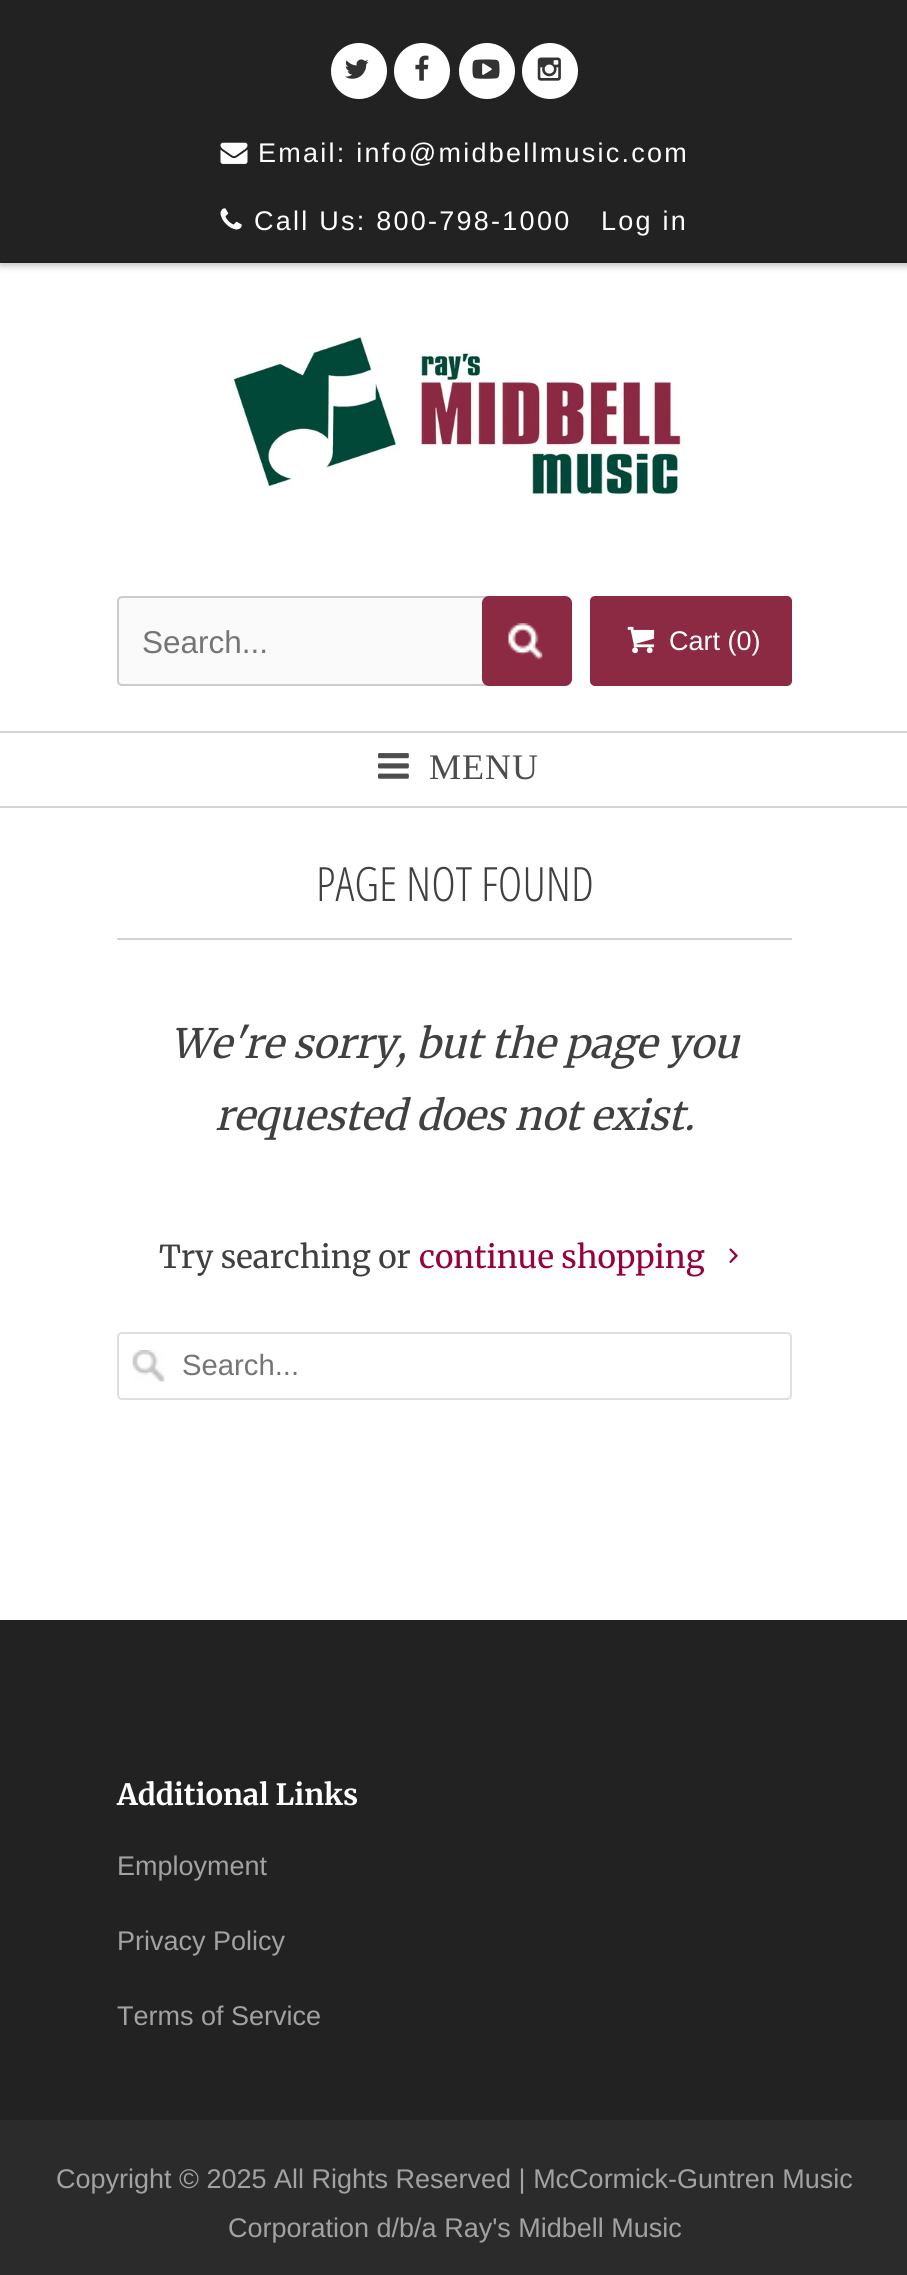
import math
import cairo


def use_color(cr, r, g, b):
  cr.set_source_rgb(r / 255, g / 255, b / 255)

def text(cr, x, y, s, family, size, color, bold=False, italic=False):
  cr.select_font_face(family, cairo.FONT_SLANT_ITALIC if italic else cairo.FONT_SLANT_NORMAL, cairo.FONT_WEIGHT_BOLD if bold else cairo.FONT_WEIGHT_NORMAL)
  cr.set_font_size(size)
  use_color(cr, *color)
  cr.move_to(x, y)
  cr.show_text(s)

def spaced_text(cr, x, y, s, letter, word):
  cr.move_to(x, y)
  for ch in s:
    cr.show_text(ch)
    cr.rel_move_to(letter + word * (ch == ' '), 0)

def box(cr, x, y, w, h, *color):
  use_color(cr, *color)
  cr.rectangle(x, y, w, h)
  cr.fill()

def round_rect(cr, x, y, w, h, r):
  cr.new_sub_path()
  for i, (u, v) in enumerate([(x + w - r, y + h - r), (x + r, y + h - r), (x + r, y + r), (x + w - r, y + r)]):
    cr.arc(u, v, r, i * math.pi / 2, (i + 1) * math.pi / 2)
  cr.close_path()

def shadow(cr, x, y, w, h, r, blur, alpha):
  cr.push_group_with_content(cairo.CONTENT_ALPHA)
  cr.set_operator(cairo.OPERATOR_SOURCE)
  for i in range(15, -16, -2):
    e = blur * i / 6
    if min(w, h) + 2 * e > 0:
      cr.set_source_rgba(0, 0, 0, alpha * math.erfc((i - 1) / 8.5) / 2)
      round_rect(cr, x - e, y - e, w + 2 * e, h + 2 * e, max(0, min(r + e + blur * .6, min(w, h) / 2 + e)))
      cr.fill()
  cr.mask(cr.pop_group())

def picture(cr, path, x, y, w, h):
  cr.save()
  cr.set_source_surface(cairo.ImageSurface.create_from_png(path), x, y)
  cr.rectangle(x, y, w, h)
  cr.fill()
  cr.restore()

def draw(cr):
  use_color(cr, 255, 255, 255)
  cr.paint()
  use_color(cr, 0, 0, 0)
  shadow(cr, 0, 2, 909, 264, 0, 3.5, 0.25)
  box(cr, 0, 0, 907, 261, 34, 34, 34)
  box(cr, 0, 261, 907, 2, 31, 31, 31)
  use_color(cr, 255, 255, 255)
  cr.arc(359, 71, 28, 0, 2 * math.pi)
  cr.fill()
  picture(cr, "img_01.png", 345, 59, 24, 20)
  cr.arc(422, 71, 28, 0, 2 * math.pi)
  cr.fill()
  picture(cr, "img_02.png", 415, 55, 14, 26)
  cr.arc(487, 71, 28, 0, 2 * math.pi)
  cr.fill()
  picture(cr, "img_03.png", 472, 59, 28, 20)
  cr.arc(550, 71, 28, 0, 2 * math.pi)
  cr.fill()
  picture(cr, "img_04.png", 537, 57, 24, 24)
  picture(cr, "img_05.png", 220, 142, 28, 22)
  picture(cr, "img_06.png", 220, 208, 22, 22)
  picture(cr, "img_07.png", 233, 335, 450, 160)
  use_color(cr, 250, 250, 250)
  round_rect(cr, 118, 597, 401, 88, 4)
  cr.fill_preserve()
  use_color(cr, 204, 204, 204)
  cr.stroke()
  use_color(cr, 140, 41, 67)
  round_rect(cr, 482, 596, 90, 90, 7)
  cr.fill()
  picture(cr, "img_08.png", 508, 623, 35, 37)
  round_rect(cr, 590, 596, 202, 90, 5)
  cr.fill()
  picture(cr, "img_09.png", 627, 626, 28, 28)
  box(cr, 0, 731, 907, 2, 211, 211, 211)
  box(cr, 0, 806, 907, 2, 211, 211, 211)
  picture(cr, "img_10.png", 378, 753, 31, 26)
  box(cr, 117, 938, 675, 2, 211, 211, 211)
  picture(cr, "img_11.png", 729, 1248, 9, 15)
  picture(cr, "img_12.png", 132, 1350, 33, 32)
  round_rect(cr, 118, 1333, 673, 66, 4)
  use_color(cr, 223, 223, 223)
  cr.stroke()
  box(cr, 0, 1620, 907, 500, 34, 34, 34)
  box(cr, 0, 2120, 907, 155, 43, 43, 43)
  cr.select_font_face("Liberation Sans")
  cr.set_font_size(27)
  use_color(cr, 255, 255, 255)
  spaced_text(cr, 258, 162, "Email: info@midbellmusic.com", 2.25, 0)
  spaced_text(cr, 254, 230, "Call Us: 800-798-1000", 2.25, 0)
  spaced_text(cr, 601, 230, "Log in", 2.25, 0)
  text(cr, 142, 653, "Search...", "Liberation Sans", 31.5, (117, 117, 117))
  text(cr, 669, 650, "Cart (0)", "Liberation Sans", 27, (255, 255, 255))
  cr.select_font_face("Liberation Serif")
  cr.set_font_size(36)
  use_color(cr, 77, 77, 77)
  spaced_text(cr, 429, 779, "MENU", 1, 0)
  text(cr, 316, 901, "PAGE NOT FOUND", "Open Sans Condensed Light", 47.25, (64, 64, 64))
  text(cr, 170, 1058, "We're sorry, but the page you", "Merriweather", 40.5, (64, 64, 64), italic=True)
  text(cr, 215, 1130, "requested does not exist.", "Merriweather", 40.5, (64, 64, 64), italic=True)
  text(cr, 159, 1268, "Try searching or", "Merriweather", 31.5, (64, 64, 64))
  text(cr, 419, 1268, "continue shopping", "Merriweather", 31.5, (150, 1, 62))
  text(cr, 182, 1375, "Search...", "Liberation Sans", 29.25, (117, 117, 117))
  text(cr, 117, 1805, "Additional Links", "Merriweather", 29.25, (255, 255, 255), bold=True)
  text(cr, 117, 1875, "Employment", "Liberation Sans", 27, (162, 162, 162))
  text(cr, 117, 1950, "Privacy Policy", "Liberation Sans", 27, (162, 162, 162))
  text(cr, 117, 2025, "Terms of Service", "Liberation Sans", 27, (162, 162, 162))
  text(cr, 56, 2188, "Copyright © 2025 All Rights Reserved | McCormick-Guntren Music", "Liberation Sans", 27, (162, 162, 162))
  text(cr, 228, 2237, "Corporation d/b/a Ray's Midbell Music", "Liberation Sans", 27, (162, 162, 162))


surface = cairo.ImageSurface(cairo.FORMAT_RGB24, 907, 2275)
cr = cairo.Context(surface)
options = cairo.FontOptions()
options.set_hint_metrics(cairo.HINT_METRICS_OFF)
options.set_hint_style(cairo.HINT_STYLE_NONE)
cr.set_font_options(options)
cr.set_miter_limit(4)
draw(cr)
surface.write_to_png("out.png")
